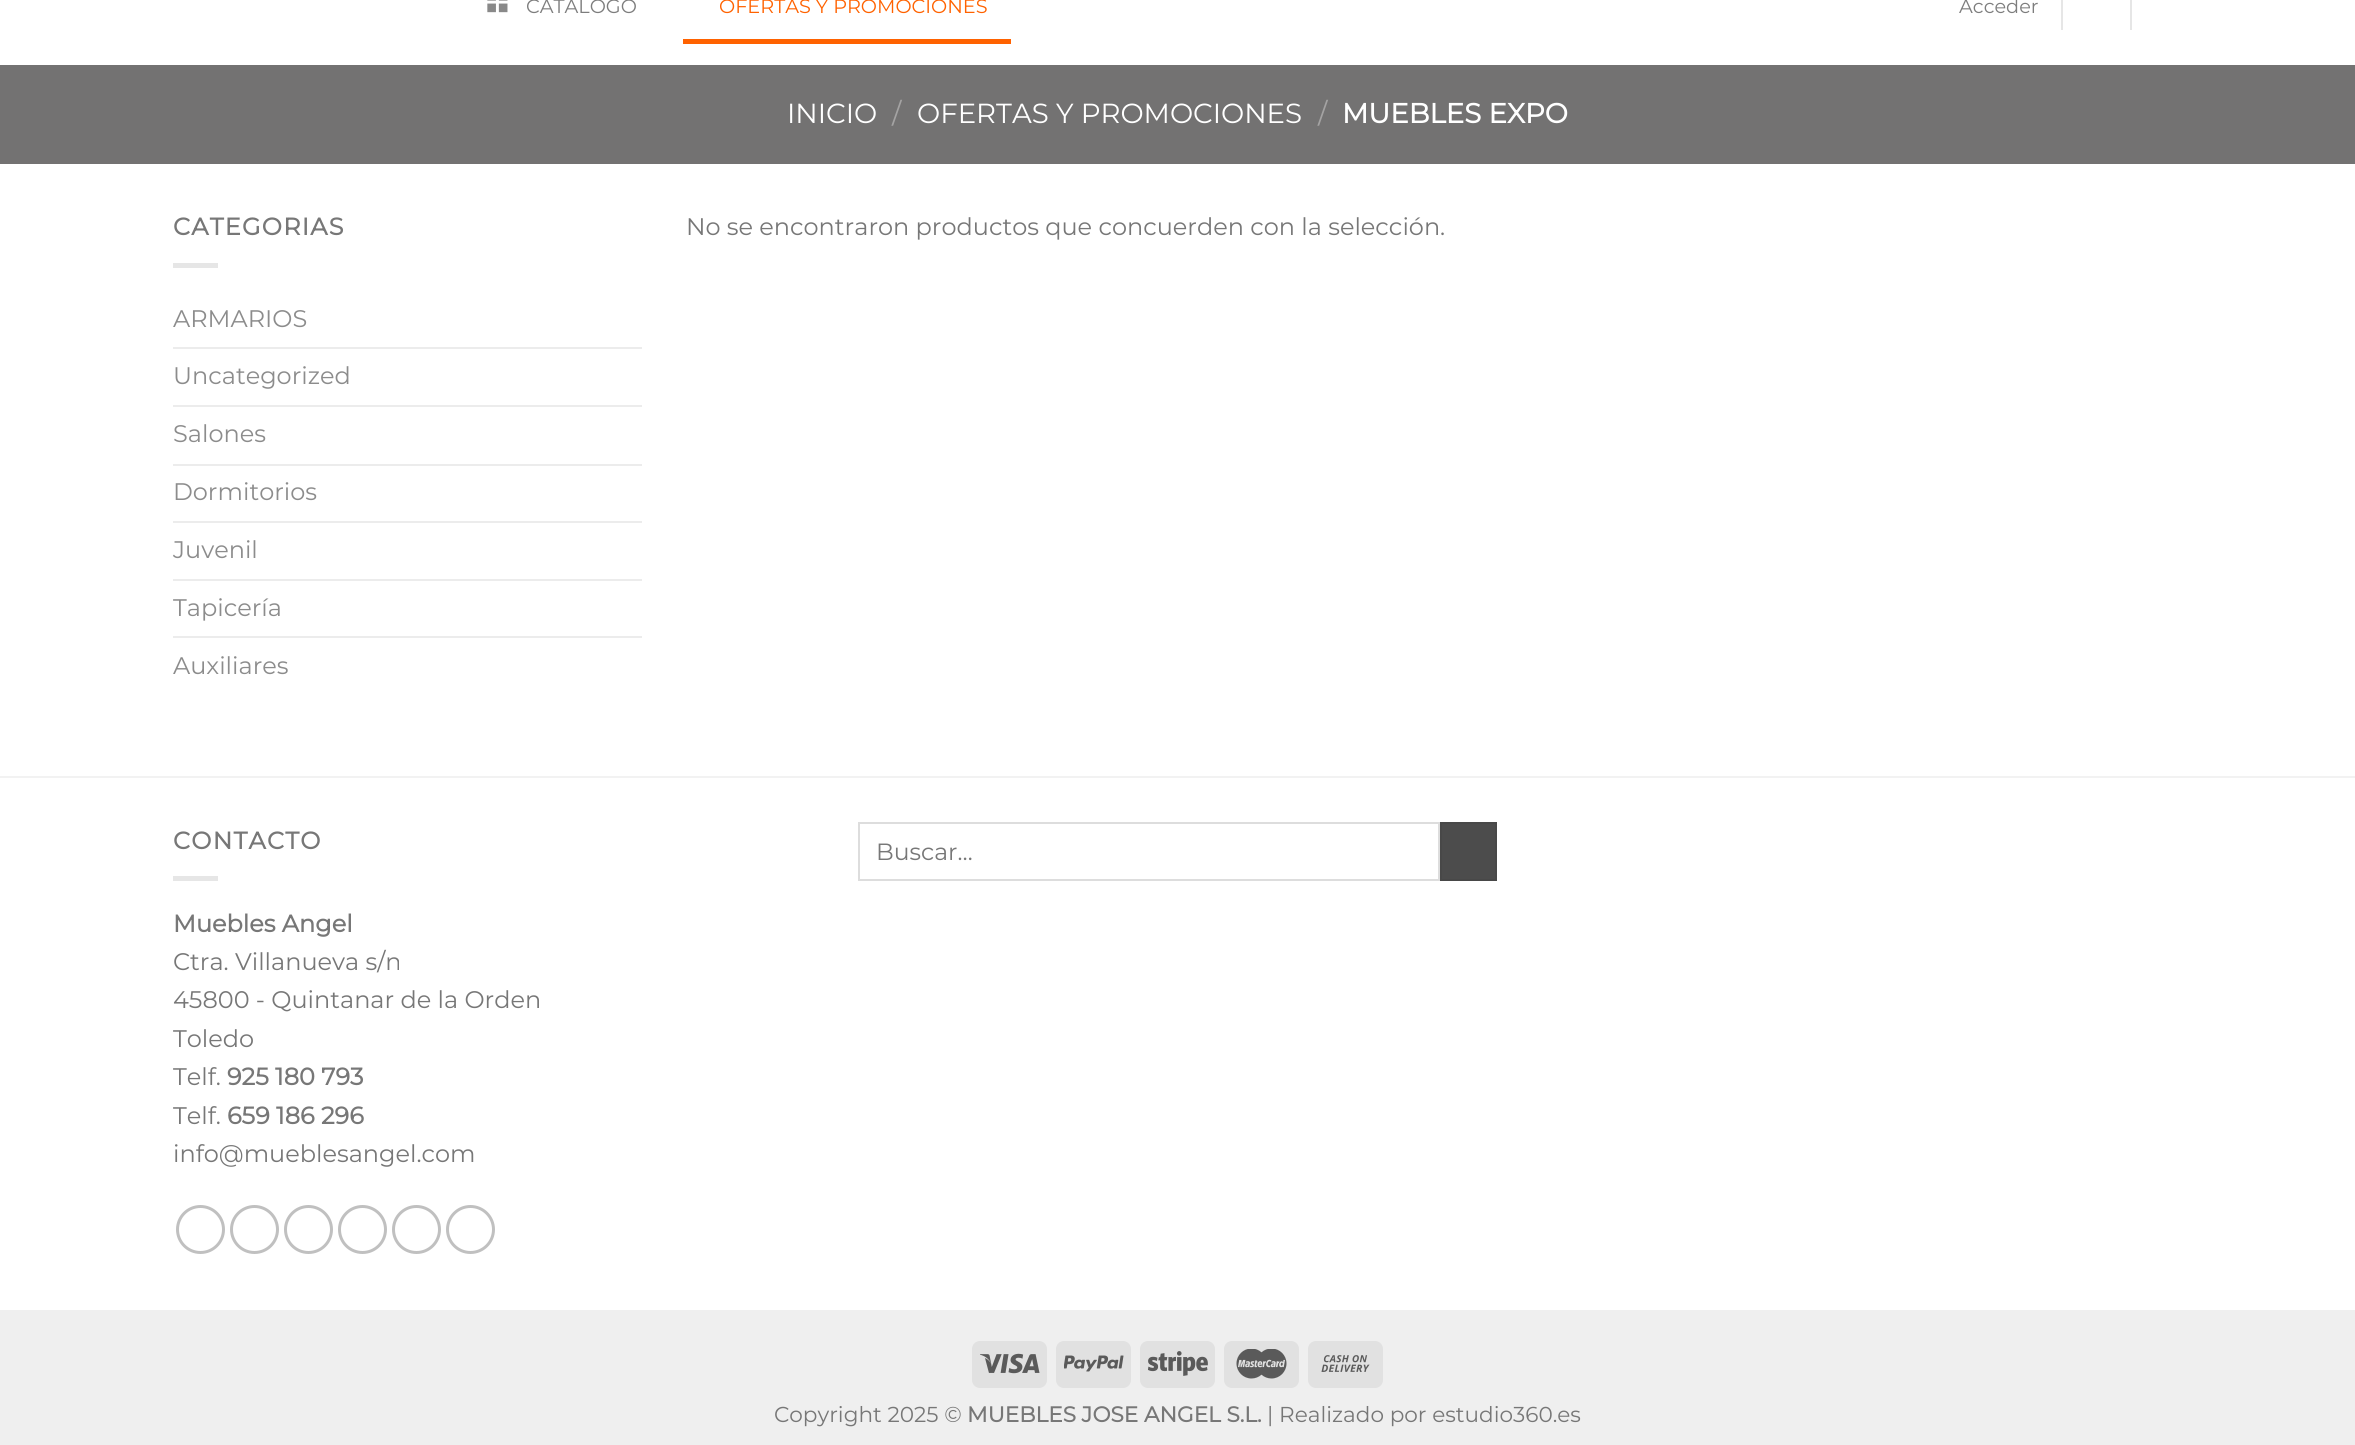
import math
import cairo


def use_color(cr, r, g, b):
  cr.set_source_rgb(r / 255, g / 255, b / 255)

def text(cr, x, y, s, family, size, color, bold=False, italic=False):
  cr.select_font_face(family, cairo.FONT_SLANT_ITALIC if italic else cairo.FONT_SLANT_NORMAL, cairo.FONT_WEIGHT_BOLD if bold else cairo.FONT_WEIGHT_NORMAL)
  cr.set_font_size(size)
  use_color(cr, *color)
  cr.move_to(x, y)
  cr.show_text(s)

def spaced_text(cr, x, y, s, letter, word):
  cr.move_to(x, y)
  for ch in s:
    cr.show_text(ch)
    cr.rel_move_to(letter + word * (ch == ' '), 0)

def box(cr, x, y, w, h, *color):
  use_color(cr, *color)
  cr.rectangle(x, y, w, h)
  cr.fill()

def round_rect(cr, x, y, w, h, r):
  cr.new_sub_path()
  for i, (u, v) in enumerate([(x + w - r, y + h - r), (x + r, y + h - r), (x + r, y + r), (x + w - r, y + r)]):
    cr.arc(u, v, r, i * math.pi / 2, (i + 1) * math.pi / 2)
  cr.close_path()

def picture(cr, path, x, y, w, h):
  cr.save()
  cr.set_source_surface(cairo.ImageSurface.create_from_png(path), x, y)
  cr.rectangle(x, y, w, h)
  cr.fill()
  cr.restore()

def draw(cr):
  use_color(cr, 255, 255, 255)
  cr.paint()
  picture(cr, "img_01.png", 487, 0, 21, 13)
  box(cr, 683, 39, 328, 5, 255, 98, 0)
  box(cr, 2061, 0, 2, 30, 230, 230, 230)
  box(cr, 2130, 0, 2, 30, 230, 230, 230)
  box(cr, 0, 65, 2355, 99, 115, 114, 114)
  box(cr, 173, 263, 45, 5, 230, 230, 230)
  box(cr, 173, 347, 469, 2, 236, 236, 236)
  box(cr, 173, 405, 469, 2, 236, 236, 236)
  box(cr, 173, 464, 469, 2, 236, 236, 236)
  box(cr, 173, 521, 469, 2, 236, 236, 236)
  box(cr, 173, 579, 469, 2, 236, 236, 236)
  box(cr, 173, 636, 469, 2, 236, 236, 236)
  box(cr, 0, 776, 2355, 2, 242, 242, 242)
  box(cr, 173, 876, 45, 5, 230, 230, 230)
  cr.arc(200.5, 1229.5, 23, 0, 2 * math.pi)
  use_color(cr, 192, 192, 192)
  cr.set_line_width(3)
  cr.stroke()
  cr.arc(254.5, 1229.5, 23, 0, 2 * math.pi)
  cr.stroke()
  cr.arc(308.5, 1229.5, 23, 0, 2 * math.pi)
  cr.stroke()
  cr.arc(362.5, 1229.5, 23, 0, 2 * math.pi)
  cr.stroke()
  cr.arc(416.5, 1229.5, 23, 0, 2 * math.pi)
  cr.stroke()
  cr.arc(470.5, 1229.5, 23, 0, 2 * math.pi)
  cr.stroke()
  cr.rectangle(859, 823, 580, 57)
  use_color(cr, 221, 221, 221)
  cr.set_line_width(2)
  cr.stroke()
  use_color(cr, 76, 76, 76)
  cr.rectangle(1441, 823, 55, 57)
  cr.fill_preserve()
  use_color(cr, 72, 72, 72)
  cr.stroke()
  box(cr, 0, 1310, 2355, 135, 239, 239, 239)
  use_color(cr, 225, 225, 225)
  round_rect(cr, 972, 1341, 75, 47, 8)
  cr.fill()
  picture(cr, "img_02.png", 980, 1353, 60, 21)
  round_rect(cr, 1056, 1341, 75, 47, 8)
  cr.fill()
  picture(cr, "img_03.png", 1064, 1355, 60, 17)
  round_rect(cr, 1140, 1341, 75, 47, 8)
  cr.fill()
  picture(cr, "img_04.png", 1148, 1351, 60, 25)
  round_rect(cr, 1224, 1341, 75, 47, 8)
  cr.fill()
  picture(cr, "img_05.png", 1236, 1349, 51, 30)
  round_rect(cr, 1308, 1341, 75, 47, 8)
  cr.fill()
  picture(cr, "img_06.png", 1321, 1355, 49, 17)
  text(cr, 526, 13, "CATALOGO", "Montserrat Thin", 19.25, (125, 125, 125))
  text(cr, 719, 13, "OFERTAS Y PROMOCIONES", "Montserrat Thin", 19.25, (255, 98, 0))
  text(cr, 1959, 13, "Acceder", "Montserrat Thin", 19.25, (125, 125, 125))
  text(cr, 787, 123, "INICIO", "Montserrat Thin", 27.6, (255, 255, 255))
  text(cr, 892, 123, "/", "Montserrat Thin", 27.6, (164, 163, 163))
  text(cr, 917, 123, "OFERTAS Y PROMOCIONES", "Montserrat Thin", 27.6, (255, 255, 255))
  text(cr, 1318, 123, "/", "Montserrat Thin", 27.6, (164, 163, 163))
  text(cr, 1342, 123, "MUEBLES EXPO", "Montserrat", 27.6, (255, 255, 255), bold=True)
  cr.set_font_size(24)
  use_color(cr, 119, 119, 119)
  spaced_text(cr, 173, 235, "CATEGORIAS", 1.25, 0)
  text(cr, 173, 327, "ARMARIOS", "Montserrat Thin", 24, (140, 140, 140))
  text(cr, 173, 384, "Uncategorized", "Montserrat Thin", 24, (140, 140, 140))
  text(cr, 173, 442, "Salones", "Montserrat Thin", 24, (140, 140, 140))
  text(cr, 173, 500, "Dormitorios", "Montserrat Thin", 24, (140, 140, 140))
  text(cr, 173, 558, "Juvenil", "Montserrat Thin", 24, (140, 140, 140))
  text(cr, 173, 616, "Tapicería", "Montserrat Thin", 24, (140, 140, 140))
  text(cr, 173, 674, "Auxiliares", "Montserrat Thin", 24, (140, 140, 140))
  text(cr, 686, 235, "No se encontraron productos que concuerden con la selección.", "Montserrat Thin", 24, (119, 119, 119))
  cr.select_font_face("Montserrat", cairo.FONT_SLANT_NORMAL, cairo.FONT_WEIGHT_BOLD)
  spaced_text(cr, 173, 849, "CONTACTO", 1.25, 0)
  text(cr, 173, 932, "Muebles Angel", "Montserrat", 24, (119, 119, 119), bold=True)
  text(cr, 173, 970, "Ctra. Villanueva s/n", "Montserrat Thin", 24, (119, 119, 119))
  text(cr, 173, 1008, "45800 - Quintanar de la Orden", "Montserrat Thin", 24, (119, 119, 119))
  text(cr, 173, 1047, "Toledo", "Montserrat Thin", 24, (119, 119, 119))
  text(cr, 173, 1085, "Telf.", "Montserrat Thin", 24, (119, 119, 119))
  text(cr, 227, 1085, "925 180 793", "Montserrat", 24, (119, 119, 119), bold=True)
  text(cr, 173, 1124, "Telf.", "Montserrat Thin", 24, (119, 119, 119))
  text(cr, 227, 1124, "659 186 296", "Montserrat", 24, (119, 119, 119), bold=True)
  text(cr, 173, 1162, "info@mueblesangel.com", "Montserrat Thin", 24, (119, 119, 119))
  text(cr, 876, 860, "Buscar…", "Montserrat Thin", 23.5, (119, 119, 119))
  text(cr, 774, 1422, "Copyright 2025 ©", "Montserrat Thin", 21.6, (119, 119, 119))
  text(cr, 967, 1422, "MUEBLES JOSE ANGEL S.L.", "Montserrat", 21.6, (119, 119, 119), bold=True)
  text(cr, 1267, 1422, "| Realizado por estudio360.es", "Montserrat Thin", 21.6, (119, 119, 119))


surface = cairo.ImageSurface(cairo.FORMAT_RGB24, 2355, 1445)
cr = cairo.Context(surface)
options = cairo.FontOptions()
options.set_hint_metrics(cairo.HINT_METRICS_OFF)
options.set_hint_style(cairo.HINT_STYLE_NONE)
cr.set_font_options(options)
cr.set_miter_limit(4)
draw(cr)
surface.write_to_png("out.png")
